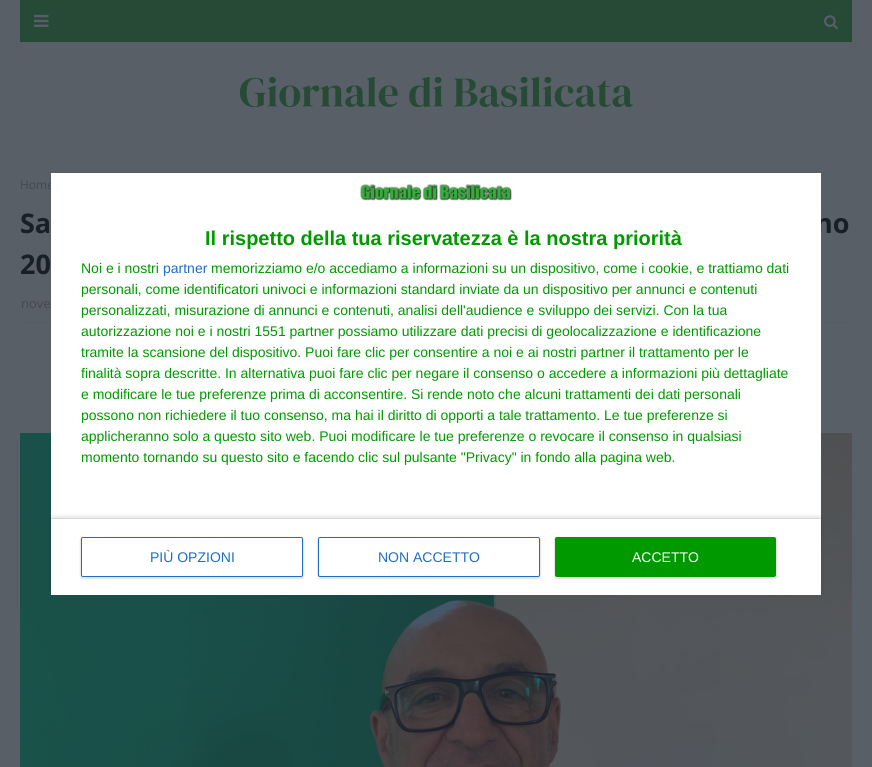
import math
import cairo


def use_color(cr, r, g, b):
  cr.set_source_rgb(r / 255, g / 255, b / 255)

def text(cr, x, y, s, family, size, color, bold=False, italic=False):
  cr.select_font_face(family, cairo.FONT_SLANT_ITALIC if italic else cairo.FONT_SLANT_NORMAL, cairo.FONT_WEIGHT_BOLD if bold else cairo.FONT_WEIGHT_NORMAL)
  cr.set_font_size(size)
  use_color(cr, *color)
  cr.move_to(x, y)
  cr.show_text(s)

def box(cr, x, y, w, h, *color):
  use_color(cr, *color)
  cr.rectangle(x, y, w, h)
  cr.fill()

def round_rect(cr, x, y, w, h, r):
  cr.new_sub_path()
  for i, (u, v) in enumerate([(x + w - r, y + h - r), (x + r, y + h - r), (x + r, y + r), (x + w - r, y + r)]):
    cr.arc(u, v, r, i * math.pi / 2, (i + 1) * math.pi / 2)
  cr.close_path()

def shadow(cr, x, y, w, h, r, blur, alpha):
  cr.push_group_with_content(cairo.CONTENT_ALPHA)
  cr.set_operator(cairo.OPERATOR_SOURCE)
  for i in range(15, -16, -2):
    e = blur * i / 6
    if min(w, h) + 2 * e > 0:
      cr.set_source_rgba(0, 0, 0, alpha * math.erfc((i - 1) / 8.5) / 2)
      round_rect(cr, x - e, y - e, w + 2 * e, h + 2 * e, max(0, min(r + e + blur * .6, min(w, h) / 2 + e)))
      cr.fill()
  cr.mask(cr.pop_group())

def picture(cr, path, x, y, w, h):
  cr.save()
  cr.set_source_surface(cairo.ImageSurface.create_from_png(path), x, y)
  cr.rectangle(x, y, w, h)
  cr.fill()
  cr.restore()

def draw(cr):
  use_color(cr, 89, 95, 103)
  cr.paint()
  box(cr, 20, 0, 832, 42, 38, 74, 54)
  picture(cr, "img_01.png", 34, 14, 15, 13)
  picture(cr, "img_02.png", 824, 15, 14, 15)
  picture(cr, "img_03.png", 239, 77, 394, 30)
  cr.new_path()
  cr.move_to(20, 322.5)
  cr.line_to(852, 322.5)
  use_color(cr, 84, 90, 98)
  cr.set_line_width(1)
  cr.set_dash([3, 1.99])
  cr.stroke()
  picture(cr, "img_04.png", 20, 433, 832, 334)
  text(cr, 20, 189, "Home", "Open Sans", 12, (67, 73, 82))
  text(cr, 20, 233, "Sa", "Open Sans", 27, (25, 31, 39), bold=True)
  text(cr, 815, 233, "no", "Open Sans", 27, (25, 31, 39), bold=True)
  text(cr, 20, 274, "20", "Open Sans", 27, (25, 31, 39), bold=True)
  text(cr, 21, 308, "nove", "Open Sans", 13, (67, 73, 82))
  box(cr, 51, 173, 770, 422, 255, 255, 255)
  picture(cr, "img_05.png", 360, 184, 152, 17)
  text(cr, 205, 245, "Il rispetto della tua riservatezza è la nostra priorità", "Liberation Sans", 20, (0, 153, 0), bold=True)
  text(cr, 81, 273, "Noi e i nostri", "Liberation Sans", 14, (0, 153, 0))
  text(cr, 163, 273, "partner", "Liberation Sans", 14, (32, 109, 197))
  text(cr, 211, 273, "memorizziamo e/o accediamo a informazioni su un dispositivo, come i cookie, e trattiamo dati", "Liberation Sans", 14, (0, 153, 0))
  text(cr, 81, 294, "personali, come identificatori univoci e informazioni standard inviate da un dispositivo per annunci e contenuti", "Liberation Sans", 14, (0, 153, 0))
  text(cr, 81, 315, "personalizzati, misurazione di annunci e contenuti, analisi dell'audience e sviluppo dei servizi. Con la tua", "Liberation Sans", 14, (0, 153, 0))
  text(cr, 81, 336, "autorizzazione noi e i nostri 1551 partner possiamo utilizzare dati precisi di geolocalizzazione e identificazione", "Liberation Sans", 14, (0, 153, 0))
  text(cr, 81, 357, "tramite la scansione del dispositivo. Puoi fare clic per consentire a noi e ai nostri partner il trattamento per le", "Liberation Sans", 14, (0, 153, 0))
  text(cr, 81, 378, "finalità sopra descritte. In alternativa puoi fare clic per negare il consenso o accedere a informazioni più dettagliate", "Liberation Sans", 14, (0, 153, 0))
  text(cr, 81, 399, "e modificare le tue preferenze prima di acconsentire. Si rende noto che alcuni trattamenti dei dati personali", "Liberation Sans", 14, (0, 153, 0))
  text(cr, 81, 420, "possono non richiedere il tuo consenso, ma hai il diritto di opporti a tale trattamento. Le tue preferenze si", "Liberation Sans", 14, (0, 153, 0))
  text(cr, 81, 441, "applicheranno solo a questo sito web. Puoi modificare le tue preferenze o revocare il consenso in qualsiasi", "Liberation Sans", 14, (0, 153, 0))
  text(cr, 81, 462, "momento tornando su questo sito e facendo clic sul pulsante \"Privacy\" in fondo alla pagina web.", "Liberation Sans", 14, (0, 153, 0))
  cr.save()
  cr.set_fill_rule(cairo.FILL_RULE_EVEN_ODD)
  cr.new_path()
  cr.move_to(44, 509)
  cr.line_to(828, 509)
  cr.line_to(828, 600)
  cr.line_to(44, 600)
  cr.close_path()
  cr.move_to(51, 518)
  cr.line_to(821, 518)
  cr.line_to(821, 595)
  cr.line_to(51, 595)
  cr.close_path()
  cr.clip()
  use_color(cr, 0, 0, 0)
  shadow(cr, 51, 516, 770, 77, 0, 2, 0.1)
  cr.restore()
  box(cr, 51, 518, 770, 1, 216, 216, 216)
  use_color(cr, 0, 0, 0)
  shadow(cr, 80, 537, 224, 42, 3, 0.5, 0.1)
  use_color(cr, 255, 255, 255)
  round_rect(cr, 81.5, 537.5, 221, 39, 1.5)
  cr.fill_preserve()
  use_color(cr, 32, 109, 197)
  cr.set_dash([])
  cr.stroke()
  text(cr, 150, 562, "PIÙ OPZIONI", "Liberation Sans", 14, (32, 109, 197))
  use_color(cr, 0, 0, 0)
  shadow(cr, 317, 537, 224, 42, 3, 0.5, 0.1)
  use_color(cr, 255, 255, 255)
  round_rect(cr, 318.5, 537.5, 221, 39, 1.5)
  cr.fill_preserve()
  use_color(cr, 32, 109, 197)
  cr.stroke()
  text(cr, 378, 562, "NON ACCETTO", "Liberation Sans", 14, (32, 109, 197))
  use_color(cr, 0, 0, 0)
  shadow(cr, 554, 537, 223, 42, 3, 0.5, 0.1)
  use_color(cr, 0, 153, 0)
  round_rect(cr, 555, 537, 221, 40, 2)
  cr.fill()
  text(cr, 632, 562, "ACCETTO", "Liberation Sans", 14, (255, 255, 255))


surface = cairo.ImageSurface(cairo.FORMAT_RGB24, 872, 767)
cr = cairo.Context(surface)
options = cairo.FontOptions()
options.set_hint_metrics(cairo.HINT_METRICS_OFF)
options.set_hint_style(cairo.HINT_STYLE_NONE)
cr.set_font_options(options)
cr.set_miter_limit(4)
draw(cr)
surface.write_to_png("out.png")
